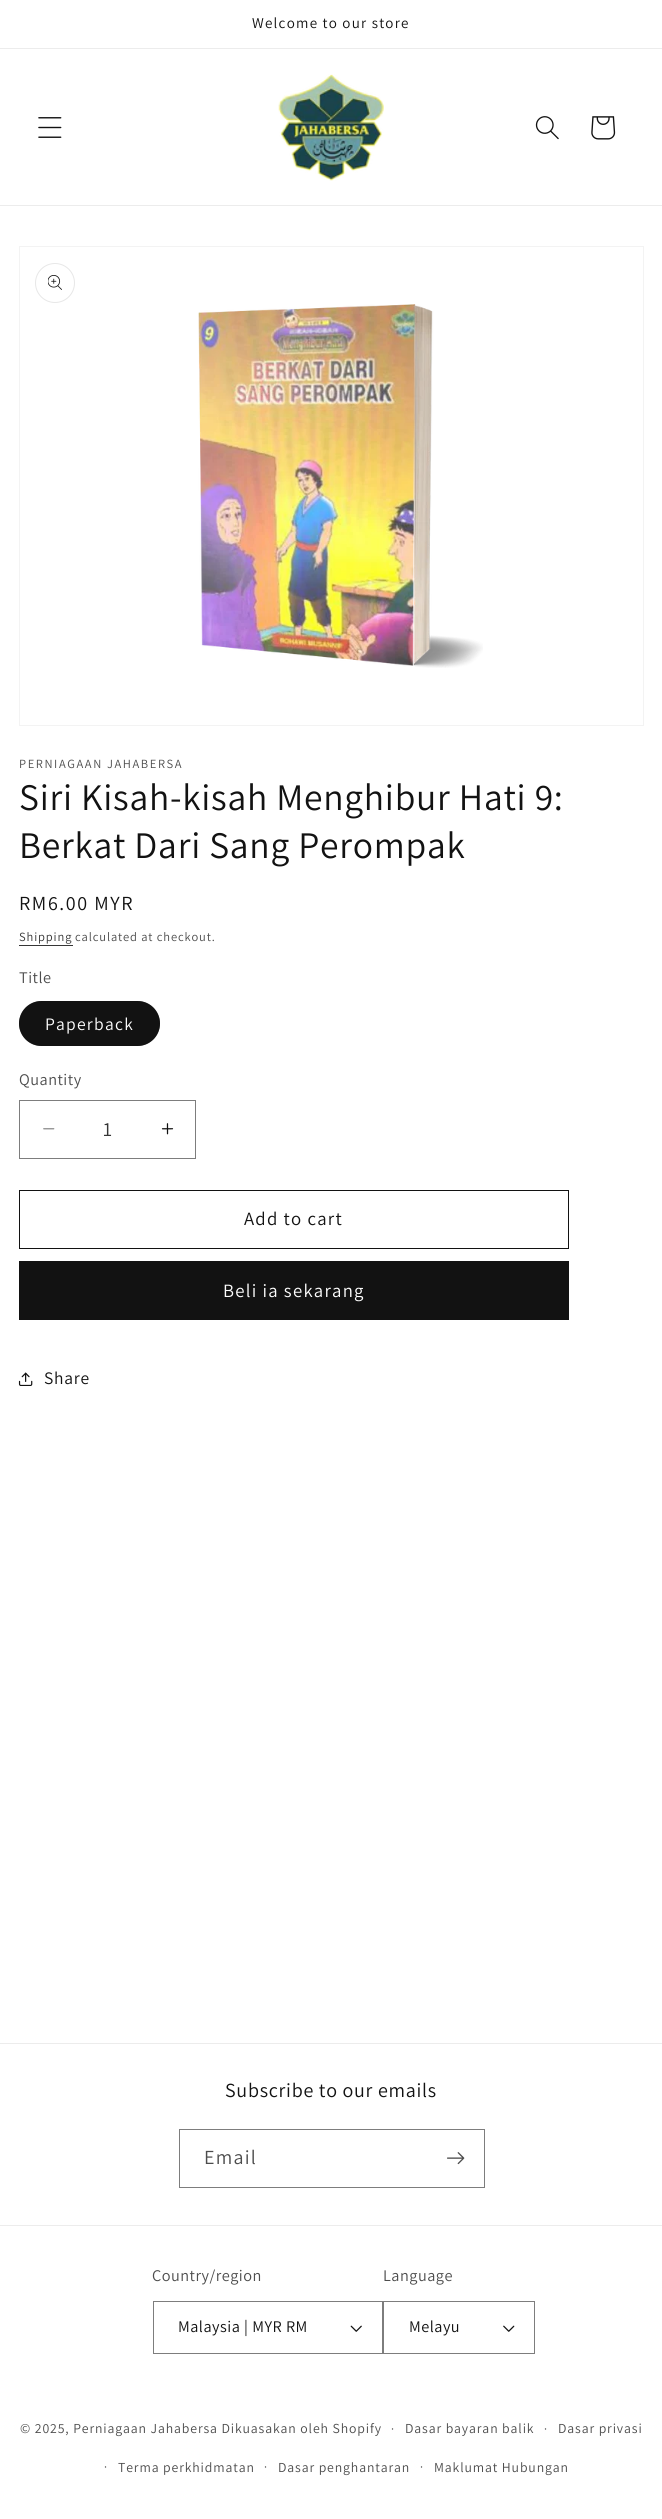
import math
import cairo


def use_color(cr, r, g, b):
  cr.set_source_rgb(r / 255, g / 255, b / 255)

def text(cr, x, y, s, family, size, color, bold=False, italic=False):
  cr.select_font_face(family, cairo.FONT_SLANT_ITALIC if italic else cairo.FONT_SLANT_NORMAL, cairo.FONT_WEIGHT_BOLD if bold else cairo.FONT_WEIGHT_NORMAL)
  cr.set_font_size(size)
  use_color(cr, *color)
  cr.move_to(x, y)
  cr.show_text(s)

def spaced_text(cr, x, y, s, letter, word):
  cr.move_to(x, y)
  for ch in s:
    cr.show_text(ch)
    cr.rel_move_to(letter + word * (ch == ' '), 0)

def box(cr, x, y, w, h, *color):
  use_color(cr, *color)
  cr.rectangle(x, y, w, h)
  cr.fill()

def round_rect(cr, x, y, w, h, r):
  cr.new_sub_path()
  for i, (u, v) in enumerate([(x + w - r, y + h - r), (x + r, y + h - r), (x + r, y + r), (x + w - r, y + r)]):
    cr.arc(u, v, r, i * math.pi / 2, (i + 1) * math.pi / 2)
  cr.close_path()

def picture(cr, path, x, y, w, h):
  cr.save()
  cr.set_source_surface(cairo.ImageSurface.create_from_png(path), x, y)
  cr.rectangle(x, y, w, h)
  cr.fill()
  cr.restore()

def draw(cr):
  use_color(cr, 255, 255, 255)
  cr.paint()
  box(cr, 0, 48, 662, 1, 236, 236, 236)
  box(cr, 0, 205, 662, 1, 236, 236, 236)
  picture(cr, "img_01.png", 38, 117, 24, 21)
  picture(cr, "img_02.png", 278, 74, 106, 107)
  picture(cr, "img_03.png", 535, 116, 24, 24)
  picture(cr, "img_04.png", 591, 116, 25, 24)
  cr.rectangle(19.5, 246.5, 624, 479)
  use_color(cr, 243, 243, 243)
  cr.set_line_width(1)
  cr.stroke()
  cr.arc(55, 283, 19.5, 0, 2 * math.pi)
  use_color(cr, 231, 231, 231)
  cr.stroke()
  picture(cr, "img_05.png", 48, 275, 14, 15)
  picture(cr, "img_06.png", 198, 304, 285, 364)
  box(cr, 19, 945, 54, 1, 54, 54, 54)
  use_color(cr, 18, 18, 18)
  round_rect(cr, 19, 1001, 141, 45, 22.5)
  cr.fill()
  round_rect(cr, 19.5, 1001.5, 140, 44, 22)
  cr.set_source_rgba(0.071, 0.071, 0.071, 0.55)
  cr.stroke()
  picture(cr, "img_07.png", 43, 1128, 12, 2)
  picture(cr, "img_08.png", 161, 1123, 13, 12)
  cr.rectangle(19.5, 1100.5, 176, 58)
  use_color(cr, 125, 125, 125)
  cr.stroke()
  cr.rectangle(19.5, 1190.5, 549, 58)
  use_color(cr, 18, 18, 18)
  cr.stroke()
  box(cr, 19, 1261, 550, 59, 18, 18, 18)
  picture(cr, "img_09.png", 18, 1372, 15, 14)
  box(cr, 0, 2043, 662, 1, 236, 236, 236)
  cr.rectangle(179.5, 2129.5, 305, 58)
  use_color(cr, 125, 125, 125)
  cr.stroke()
  picture(cr, "img_10.png", 447, 2152, 18, 13)
  box(cr, 0, 2225, 662, 1, 236, 236, 236)
  picture(cr, "img_11.png", 350, 2325, 12, 7)
  cr.rectangle(153.5, 2301.5, 229, 52)
  use_color(cr, 125, 125, 125)
  cr.stroke()
  picture(cr, "img_12.png", 503, 2325, 12, 7)
  cr.rectangle(383.5, 2301.5, 151, 52)
  cr.stroke()
  cr.select_font_face("Assistant")
  cr.set_font_size(15)
  use_color(cr, 18, 18, 18)
  spaced_text(cr, 252, 28, "Welcome to our store", 1.25, 0)
  cr.set_font_size(12.5)
  use_color(cr, 77, 77, 77)
  spaced_text(cr, 19, 768, "PERNIAGAAN JAHABERSA", 1.6, 0)
  cr.set_font_size(37.5)
  use_color(cr, 18, 18, 18)
  spaced_text(cr, 19, 810, "Siri Kisah-kisah Menghibur Hati 9:", 0.75, 0)
  spaced_text(cr, 19, 858, "Berkat Dari Sang Perompak", 0.75, 0)
  cr.set_font_size(20)
  spaced_text(cr, 19, 910, "RM6.00 MYR", 1.6, 0)
  cr.set_font_size(12.5)
  use_color(cr, 54, 54, 54)
  spaced_text(cr, 19, 941, "Shipping", 0.88, 0)
  use_color(cr, 77, 77, 77)
  spaced_text(cr, 75, 941, "calculated at checkout.", 0.88, 0)
  cr.set_font_size(16.25)
  spaced_text(cr, 19, 983, "Title", 0.5, 0)
  cr.set_font_size(17.5)
  use_color(cr, 255, 255, 255)
  spaced_text(cr, 45, 1030, "Paperback", 1.25, 0)
  cr.set_font_size(16.25)
  use_color(cr, 77, 77, 77)
  spaced_text(cr, 19, 1085, "Quantity", 0.5, 0)
  text(cr, 103, 1136, "1", "Assistant", 20, (54, 54, 54))
  cr.set_font_size(18.75)
  use_color(cr, 18, 18, 18)
  spaced_text(cr, 244, 1225, "Add to cart", 1.25, 0)
  use_color(cr, 255, 255, 255)
  spaced_text(cr, 223, 1297, "Beli ia sekarang", 1.25, 0)
  cr.set_font_size(17.5)
  use_color(cr, 18, 18, 18)
  spaced_text(cr, 44, 1384, "Share", 0.75, 0)
  cr.set_font_size(20)
  spaced_text(cr, 225, 2097, "Subscribe to our emails", 0.75, 0)
  use_color(cr, 77, 77, 77)
  spaced_text(cr, 204, 2164, "Email", 1.25, 0)
  cr.set_font_size(16.25)
  spaced_text(cr, 152, 2281, "Country/region", 0.5, 0)
  use_color(cr, 18, 18, 18)
  spaced_text(cr, 178, 2332, "Malaysia | MYR RM", 0.5, 0)
  use_color(cr, 77, 77, 77)
  spaced_text(cr, 383, 2281, "Language", 0.5, 0)
  use_color(cr, 18, 18, 18)
  spaced_text(cr, 409, 2332, "Melayu", 0.5, 0)
  cr.set_font_size(13.75)
  use_color(cr, 77, 77, 77)
  spaced_text(cr, 20, 2433, "© 2025, Perniagaan Jahabersa Dikuasakan oleh Shopify", 0.88, 0)
  cr.set_font_size(12.5)
  spaced_text(cr, 391, 2433, "·", 0.88, 0)
  cr.set_font_size(13.75)
  spaced_text(cr, 405, 2433, "Dasar bayaran balik", 0.88, 0)
  cr.set_font_size(12.5)
  spaced_text(cr, 544, 2433, "·", 0.88, 0)
  cr.set_font_size(13.75)
  spaced_text(cr, 558, 2433, "Dasar privasi", 0.88, 0)
  cr.set_font_size(12.5)
  spaced_text(cr, 104, 2471, "·", 0.88, 0)
  cr.set_font_size(13.75)
  spaced_text(cr, 118, 2472, "Terma perkhidmatan", 0.88, 0)
  cr.set_font_size(12.5)
  spaced_text(cr, 264, 2471, "·", 0.88, 0)
  cr.set_font_size(13.75)
  spaced_text(cr, 278, 2472, "Dasar penghantaran", 0.88, 0)
  cr.set_font_size(12.5)
  spaced_text(cr, 420, 2471, "·", 0.88, 0)
  cr.set_font_size(13.75)
  spaced_text(cr, 434, 2472, "Maklumat Hubungan", 0.88, 0)


surface = cairo.ImageSurface(cairo.FORMAT_RGB24, 662, 2519)
cr = cairo.Context(surface)
options = cairo.FontOptions()
options.set_hint_metrics(cairo.HINT_METRICS_OFF)
options.set_hint_style(cairo.HINT_STYLE_NONE)
cr.set_font_options(options)
cr.set_miter_limit(4)
draw(cr)
surface.write_to_png("out.png")
